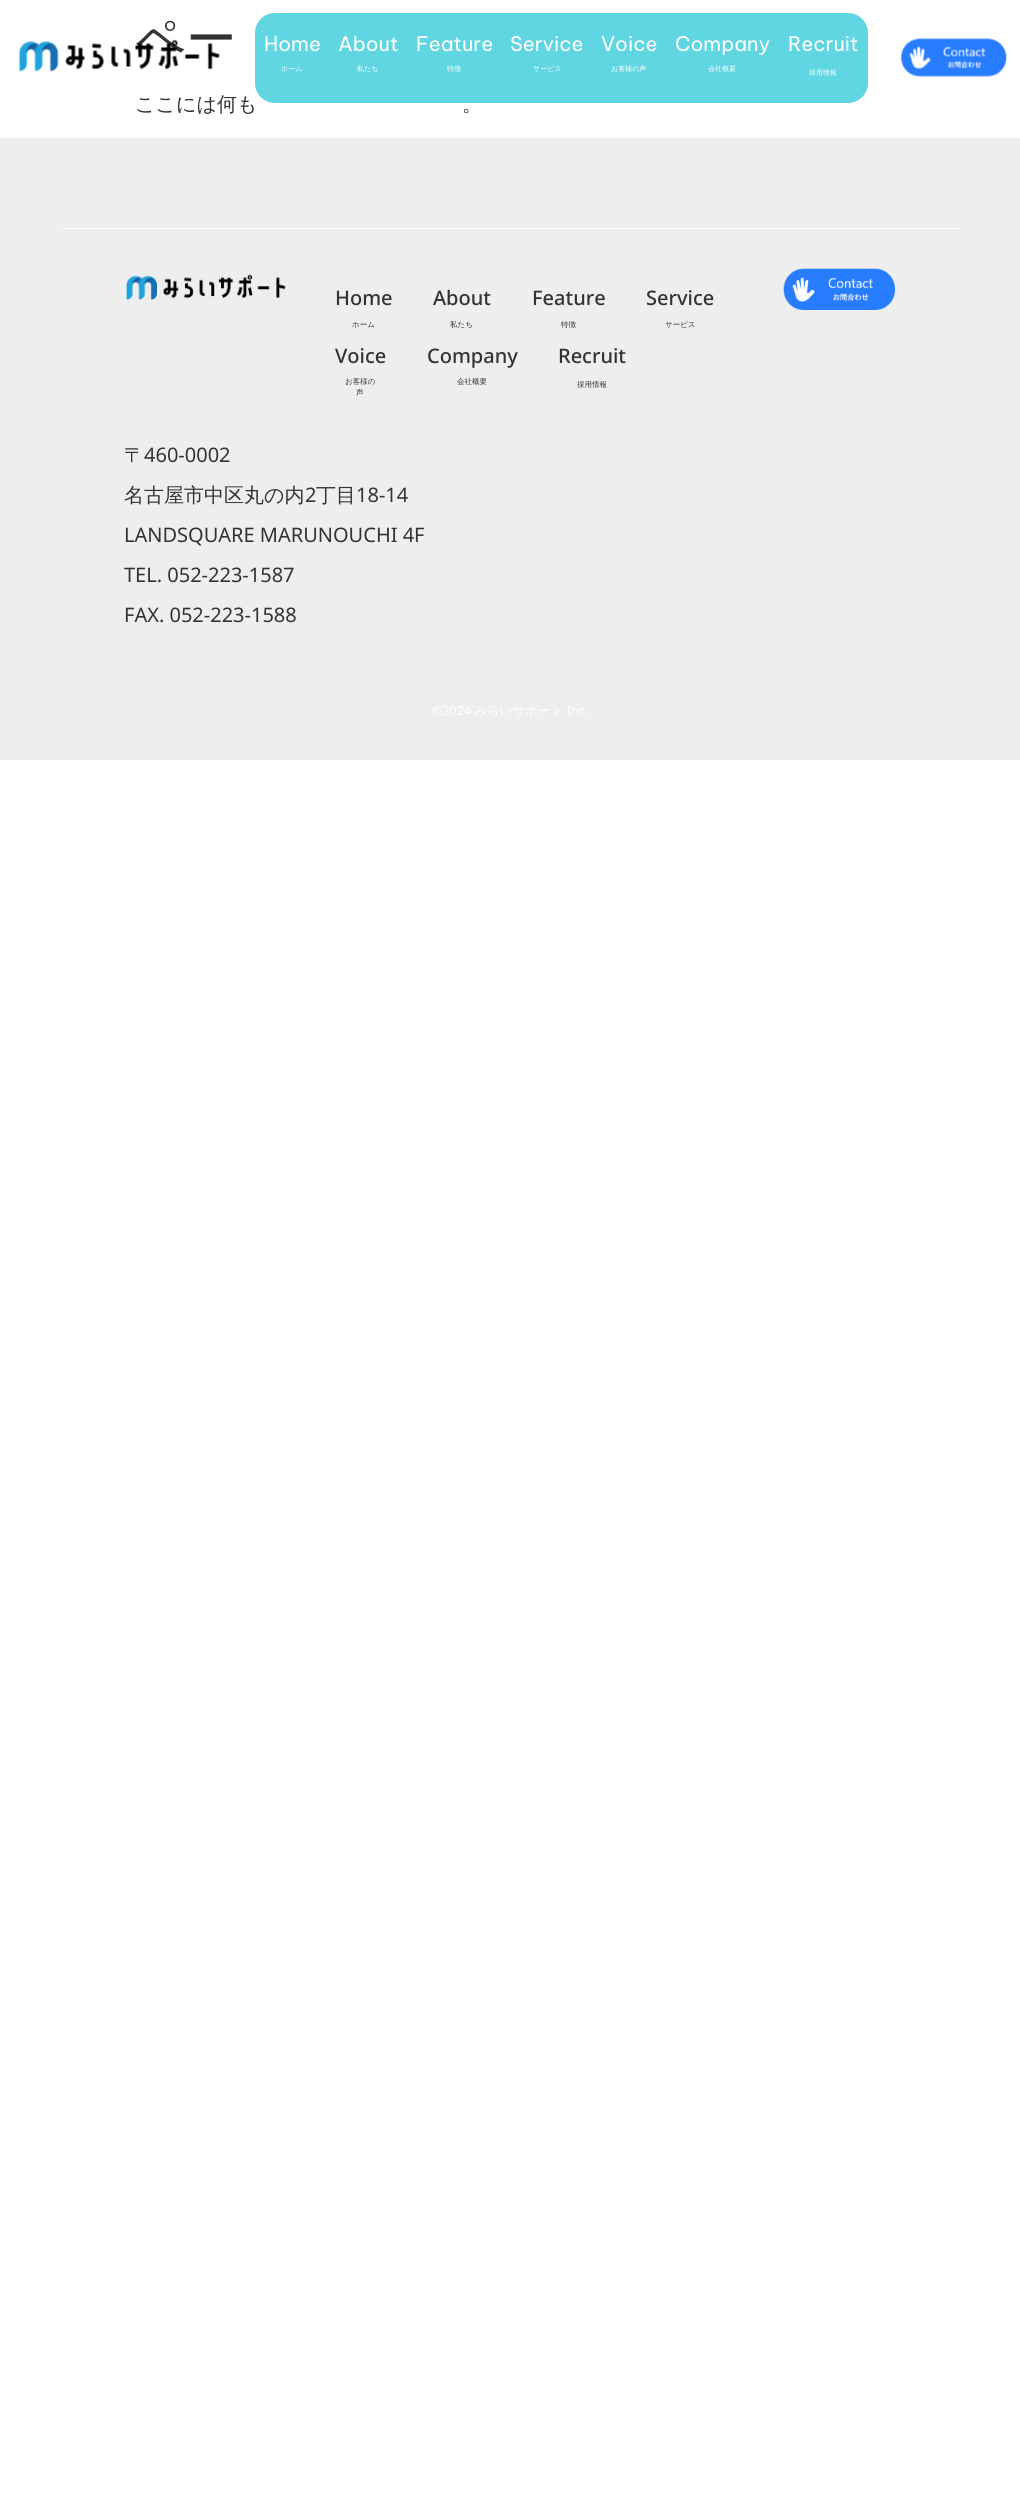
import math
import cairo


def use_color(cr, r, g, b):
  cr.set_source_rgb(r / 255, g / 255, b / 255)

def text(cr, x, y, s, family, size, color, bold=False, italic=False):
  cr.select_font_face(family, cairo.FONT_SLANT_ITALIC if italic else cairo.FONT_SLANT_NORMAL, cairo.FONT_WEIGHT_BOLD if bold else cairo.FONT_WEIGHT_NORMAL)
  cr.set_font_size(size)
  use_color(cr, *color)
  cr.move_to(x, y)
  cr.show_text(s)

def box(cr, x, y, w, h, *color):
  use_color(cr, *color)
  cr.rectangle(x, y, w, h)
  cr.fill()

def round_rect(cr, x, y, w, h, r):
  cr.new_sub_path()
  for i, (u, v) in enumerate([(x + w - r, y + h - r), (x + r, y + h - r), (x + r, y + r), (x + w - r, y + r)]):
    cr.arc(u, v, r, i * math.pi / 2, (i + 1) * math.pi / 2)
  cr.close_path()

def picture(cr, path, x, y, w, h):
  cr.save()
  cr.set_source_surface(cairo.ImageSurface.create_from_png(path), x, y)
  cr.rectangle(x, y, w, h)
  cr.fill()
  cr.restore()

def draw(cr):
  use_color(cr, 255, 255, 255)
  cr.paint()
  cr.set_source_rgba(0.145, 0.78, 0.843, 0.73)
  round_rect(cr, 255, 13, 613, 90, 20)
  cr.fill()
  picture(cr, "img_02.png", 901, 38, 106, 39)
  box(cr, 0, 138, 1020, 622, 238, 238, 238)
  box(cr, 63, 228, 895, 1, 255, 255, 255)
  picture(cr, "img_03.png", 126, 274, 160, 26)
  picture(cr, "img_04.png", 783, 268, 112, 42)
  text(cr, 135, 56, "ペー", "WenQuanYi Zen Hei Medium", 50, (51, 51, 51))
  text(cr, 135, 111, "ここには何も", "WenQuanYi Zen Hei Medium", 20, (51, 51, 51))
  text(cr, 462, 111, "。", "WenQuanYi Zen Hei Medium", 20, (51, 51, 51))
  picture(cr, "img_01.png", 18, 39, 202, 33)
  text(cr, 264, 51, "Home", "Be Vietnam Pro", 20, (255, 255, 255))
  text(cr, 281, 71, "ホーム", "WenQuanYi Zen Hei Medium", 7, (255, 255, 255))
  text(cr, 338, 51, "About", "Be Vietnam Pro", 20, (255, 255, 255))
  text(cr, 357, 71, "私たち", "WenQuanYi Zen Hei Medium", 7, (255, 255, 255))
  text(cr, 416, 51, "Feature", "Be Vietnam Pro", 20, (255, 255, 255))
  text(cr, 447, 71, "特徴", "WenQuanYi Zen Hei Medium", 7, (255, 255, 255))
  text(cr, 510, 51, "Service", "Be Vietnam Pro", 20, (255, 255, 255))
  text(cr, 533, 71, "サービス", "WenQuanYi Zen Hei Medium", 7, (255, 255, 255))
  text(cr, 601, 51, "Voice", "Be Vietnam Pro", 20, (255, 255, 255))
  text(cr, 611, 71, "お客様の声", "WenQuanYi Zen Hei Medium", 7, (255, 255, 255))
  text(cr, 675, 51, "Company", "Be Vietnam Pro", 20, (255, 255, 255))
  text(cr, 708, 71, "会社概要", "WenQuanYi Zen Hei Medium", 7, (255, 255, 255))
  text(cr, 788, 51, "Recruit", "Be Vietnam Pro", 20, (255, 255, 255))
  text(cr, 809, 75, "採用情報", "WenQuanYi Zen Hei Medium", 7, (255, 255, 255))
  text(cr, 335, 305, "Home", "Noto Sans Medium", 20, (51, 51, 51))
  text(cr, 352, 327, "ホーム", "WenQuanYi Zen Hei Medium", 7.5, (51, 51, 51))
  text(cr, 433, 305, "About", "Noto Sans Medium", 20, (51, 51, 51))
  text(cr, 450, 327, "私たち", "WenQuanYi Zen Hei Medium", 7.5, (51, 51, 51))
  text(cr, 532, 305, "Feature", "Noto Sans Medium", 20, (51, 51, 51))
  text(cr, 561, 327, "特徴", "WenQuanYi Zen Hei Medium", 7.5, (51, 51, 51))
  text(cr, 646, 305, "Service", "Noto Sans Medium", 20, (51, 51, 51))
  text(cr, 665, 327, "サービス", "WenQuanYi Zen Hei Medium", 7.5, (51, 51, 51))
  text(cr, 335, 363, "Voice", "Noto Sans Medium", 20, (51, 51, 51))
  text(cr, 345, 384, "お客様の", "WenQuanYi Zen Hei Medium", 7.5, (51, 51, 51))
  text(cr, 356, 395, "声", "WenQuanYi Zen Hei Medium", 7.5, (51, 51, 51))
  text(cr, 427, 363, "Company", "Noto Sans Medium", 20, (51, 51, 51))
  text(cr, 457, 384, "会社概要", "WenQuanYi Zen Hei Medium", 7.5, (51, 51, 51))
  text(cr, 558, 363, "Recruit", "Noto Sans Medium", 20, (51, 51, 51))
  text(cr, 577, 387, "採用情報", "WenQuanYi Zen Hei Medium", 7.5, (51, 51, 51))
  text(cr, 124, 462, "〒", "WenQuanYi Zen Hei Medium", 20, (51, 51, 51))
  text(cr, 144, 462, "460-0002", "Noto Sans", 20, (51, 51, 51))
  text(cr, 124, 502, "名古屋市中区丸の内", "WenQuanYi Zen Hei Medium", 20, (51, 51, 51))
  text(cr, 305, 502, "2", "Noto Sans", 20, (51, 51, 51))
  text(cr, 316, 502, "丁目", "WenQuanYi Zen Hei Medium", 20, (51, 51, 51))
  text(cr, 356, 502, "18-14", "Noto Sans", 20, (51, 51, 51))
  text(cr, 124, 542, "LANDSQUARE MARUNOUCHI 4F", "Noto Sans", 20, (51, 51, 51))
  text(cr, 124, 582, "TEL. 052-223-1587", "Noto Sans", 20, (51, 51, 51))
  text(cr, 124, 622, "FAX. 052-223-1588", "Noto Sans", 20, (51, 51, 51))
  text(cr, 432, 715, "©2024", "Noto Sans", 12.5, (255, 255, 255))
  text(cr, 474, 715, "みらいサポート", "WenQuanYi Zen Hei Medium", 12.5, (255, 255, 255))
  text(cr, 567, 715, "Inc.", "Noto Sans", 12.5, (255, 255, 255))


surface = cairo.ImageSurface(cairo.FORMAT_RGB24, 1020, 2494)
cr = cairo.Context(surface)
options = cairo.FontOptions()
options.set_hint_metrics(cairo.HINT_METRICS_OFF)
options.set_hint_style(cairo.HINT_STYLE_NONE)
cr.set_font_options(options)
cr.set_miter_limit(4)
draw(cr)
surface.write_to_png("out.png")
